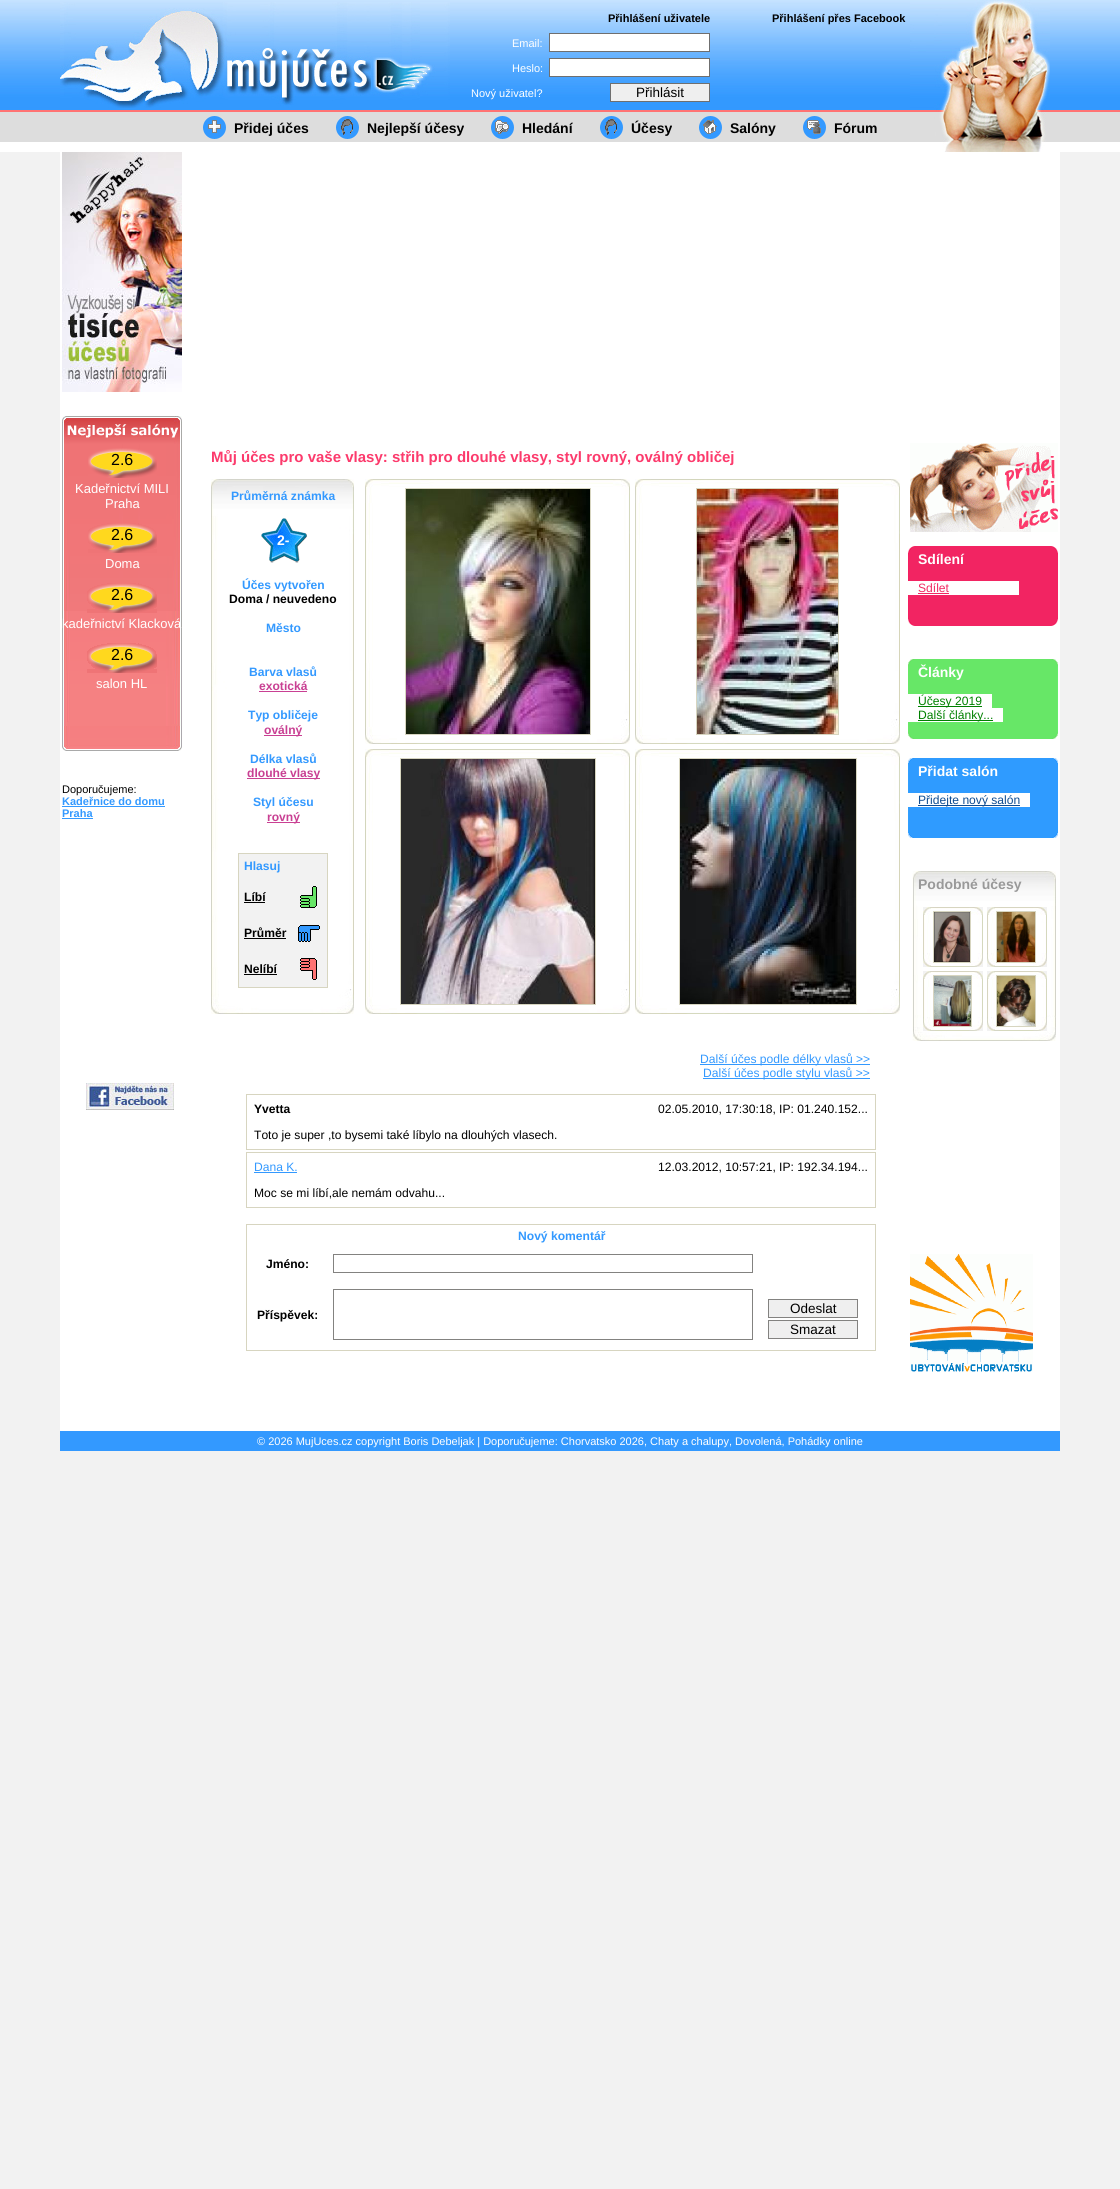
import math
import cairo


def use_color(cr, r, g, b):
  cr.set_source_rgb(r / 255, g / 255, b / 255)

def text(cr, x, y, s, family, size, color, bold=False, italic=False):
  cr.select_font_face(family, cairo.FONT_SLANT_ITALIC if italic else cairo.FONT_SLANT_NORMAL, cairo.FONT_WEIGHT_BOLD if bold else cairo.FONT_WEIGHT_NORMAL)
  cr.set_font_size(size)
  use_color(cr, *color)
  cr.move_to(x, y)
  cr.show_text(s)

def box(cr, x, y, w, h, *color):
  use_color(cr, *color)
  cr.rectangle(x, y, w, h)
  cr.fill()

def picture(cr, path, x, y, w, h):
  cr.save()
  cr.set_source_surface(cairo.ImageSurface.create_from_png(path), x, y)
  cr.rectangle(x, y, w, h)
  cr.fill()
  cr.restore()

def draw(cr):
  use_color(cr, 242, 242, 242)
  cr.paint()
  picture(cr, "img_01.png", 0, 0, 1120, 152)
  box(cr, 60, 152, 1000, 1279, 255, 255, 255)
  picture(cr, "img_02.png", 60, 0, 1000, 110)
  picture(cr, "img_03.png", 60, 2, 390, 106)
  cr.rectangle(549.5, 33.5, 160, 18)
  cr.fill_preserve()
  use_color(cr, 111, 111, 111)
  cr.set_line_width(1)
  cr.stroke()
  use_color(cr, 255, 255, 255)
  cr.rectangle(549.5, 58.5, 160, 18)
  cr.fill_preserve()
  use_color(cr, 111, 111, 111)
  cr.stroke()
  use_color(cr, 239, 239, 239)
  cr.rectangle(610.5, 83.5, 99, 18)
  cr.fill_preserve()
  use_color(cr, 111, 111, 111)
  cr.stroke()
  picture(cr, "img_04.png", 910, 0, 140, 152)
  picture(cr, "img_05.png", 203, 116, 23, 23)
  picture(cr, "img_06.png", 336, 116, 23, 23)
  picture(cr, "img_07.png", 491, 116, 23, 23)
  picture(cr, "img_06.png", 600, 116, 23, 23)
  picture(cr, "img_08.png", 699, 116, 23, 23)
  picture(cr, "img_09.png", 803, 116, 23, 23)
  picture(cr, "img_10.png", 62, 152, 120, 240)
  picture(cr, "img_11.png", 62, 416, 120, 335)
  picture(cr, "img_12.png", 88, 448, 69, 30)
  picture(cr, "img_13.png", 88, 523, 69, 30)
  picture(cr, "img_14.png", 87, 583, 70, 30)
  picture(cr, "img_15.png", 87, 643, 70, 30)
  box(cr, 62, 806, 103, 1, 51, 153, 255)
  box(cr, 62, 818, 31, 1, 51, 153, 255)
  picture(cr, "img_16.png", 86, 1083, 88, 27)
  picture(cr, "img_17.png", 211, 479, 143, 535)
  picture(cr, "img_18.png", 261, 518, 46, 45)
  box(cr, 259, 691, 48, 1, 201, 64, 147)
  box(cr, 264, 735, 38, 1, 201, 64, 147)
  box(cr, 247, 778, 73, 1, 201, 64, 147)
  box(cr, 267, 822, 33, 1, 201, 64, 147)
  use_color(cr, 242, 242, 242)
  cr.rectangle(238.5, 853.5, 89, 134)
  cr.fill_preserve()
  use_color(cr, 215, 213, 192)
  cr.stroke()
  box(cr, 244, 902, 21, 1, 0, 0, 0)
  picture(cr, "img_19.png", 300, 886, 17, 22)
  box(cr, 244, 938, 42, 1, 0, 0, 0)
  picture(cr, "img_20.png", 298, 925, 22, 17)
  box(cr, 244, 974, 33, 1, 0, 0, 0)
  picture(cr, "img_21.png", 300, 958, 17, 22)
  picture(cr, "img_22.png", 365, 479, 265, 265)
  cr.rectangle(405.5, 488.5, 185, 246)
  use_color(cr, 215, 213, 192)
  cr.stroke()
  picture(cr, "img_23.png", 406, 489, 184, 245)
  picture(cr, "img_22.png", 635, 479, 265, 265)
  cr.rectangle(696.5, 488.5, 142, 246)
  cr.stroke()
  picture(cr, "img_24.png", 697, 489, 141, 245)
  picture(cr, "img_22.png", 365, 749, 265, 265)
  cr.rectangle(400.5, 758.5, 195, 246)
  cr.stroke()
  picture(cr, "img_25.png", 401, 759, 194, 245)
  picture(cr, "img_22.png", 635, 749, 265, 265)
  cr.rectangle(679.5, 758.5, 177, 246)
  cr.stroke()
  picture(cr, "img_26.png", 680, 759, 176, 245)
  box(cr, 700, 1064, 170, 1, 51, 153, 255)
  box(cr, 703, 1078, 167, 1, 51, 153, 255)
  cr.rectangle(246.5, 1094.5, 629, 55)
  use_color(cr, 215, 213, 192)
  cr.stroke()
  cr.rectangle(246.5, 1152.5, 629, 55)
  cr.stroke()
  box(cr, 254, 1172, 43, 1, 51, 153, 255)
  cr.rectangle(246.5, 1224.5, 629, 126)
  use_color(cr, 215, 213, 192)
  cr.stroke()
  cr.rectangle(333.5, 1254.5, 419, 18)
  use_color(cr, 131, 130, 128)
  cr.stroke()
  cr.rectangle(333.5, 1289.5, 419, 50)
  cr.stroke()
  use_color(cr, 239, 239, 239)
  cr.rectangle(768.5, 1299.5, 89, 18)
  cr.fill_preserve()
  use_color(cr, 131, 130, 128)
  cr.stroke()
  use_color(cr, 239, 239, 239)
  cr.rectangle(768.5, 1320.5, 89, 18)
  cr.fill_preserve()
  use_color(cr, 131, 130, 128)
  cr.stroke()
  picture(cr, "img_27.png", 910, 443, 148, 89)
  picture(cr, "img_28.png", 908, 546, 150, 80)
  box(cr, 908, 581, 111, 14, 255, 255, 255)
  box(cr, 918, 593, 31, 1, 241, 41, 98)
  picture(cr, "img_29.png", 908, 659, 150, 80)
  box(cr, 908, 694, 84, 14, 255, 255, 255)
  box(cr, 918, 706, 64, 1, 0, 128, 0)
  box(cr, 908, 708, 95, 14, 255, 255, 255)
  box(cr, 918, 720, 75, 1, 0, 128, 0)
  picture(cr, "img_30.png", 908, 758, 150, 80)
  box(cr, 908, 793, 122, 14, 255, 255, 255)
  box(cr, 918, 805, 102, 1, 15, 77, 146)
  picture(cr, "img_31.png", 912, 871, 144, 170)
  box(cr, 923, 907, 60, 60, 242, 242, 242)
  picture(cr, "img_32.png", 923, 907, 60, 60)
  cr.rectangle(933.5, 911.5, 37, 51)
  use_color(cr, 215, 213, 192)
  cr.stroke()
  picture(cr, "img_33.png", 934, 912, 36, 50)
  box(cr, 987, 907, 60, 60, 242, 242, 242)
  picture(cr, "img_32.png", 987, 907, 60, 60)
  cr.rectangle(996.5, 911.5, 39, 51)
  use_color(cr, 215, 213, 192)
  cr.stroke()
  picture(cr, "img_34.png", 997, 912, 38, 50)
  box(cr, 923, 971, 60, 60, 242, 242, 242)
  picture(cr, "img_32.png", 923, 971, 60, 60)
  cr.rectangle(933.5, 975.5, 38, 51)
  use_color(cr, 215, 213, 192)
  cr.stroke()
  picture(cr, "img_35.png", 934, 976, 37, 50)
  box(cr, 987, 971, 60, 60, 242, 242, 242)
  picture(cr, "img_32.png", 987, 971, 60, 60)
  cr.rectangle(996.5, 975.5, 39, 51)
  use_color(cr, 215, 213, 192)
  cr.stroke()
  picture(cr, "img_36.png", 997, 976, 38, 50)
  picture(cr, "img_37.png", 910, 1254, 123, 118)
  box(cr, 60, 1431, 1000, 20, 51, 153, 255)
  text(cr, 608, 22, "Přihlášení uživatele", "Liberation Sans", 11, (0, 0, 0), bold=True)
  text(cr, 512, 47, "Email:", "Liberation Sans", 11, (255, 255, 255))
  text(cr, 512, 72, "Heslo:", "Liberation Sans", 11, (255, 255, 255))
  text(cr, 471, 97, "Nový uživatel?", "Liberation Sans", 11, (255, 255, 255))
  text(cr, 636, 97, "Přihlásit", "Liberation Sans", 13.5, (0, 0, 0))
  text(cr, 772, 22, "Přihlášení přes Facebook", "Liberation Sans", 11, (0, 0, 0), bold=True)
  text(cr, 234, 133, "Přidej účes", "Liberation Sans", 14, (0, 0, 0), bold=True)
  text(cr, 367, 133, "Nejlepší účesy", "Liberation Sans", 14, (0, 0, 0), bold=True)
  text(cr, 522, 133, "Hledání", "Liberation Sans", 14, (0, 0, 0), bold=True)
  text(cr, 631, 133, "Účesy", "Liberation Sans", 14, (0, 0, 0), bold=True)
  text(cr, 730, 133, "Salóny", "Liberation Sans", 14, (0, 0, 0), bold=True)
  text(cr, 834, 133, "Fórum", "Liberation Sans", 14, (0, 0, 0), bold=True)
  text(cr, 111, 465, "2.6", "Liberation Sans", 16, (0, 0, 0))
  text(cr, 75, 493, "Kadeřnictví MILI", "Liberation Sans", 13, (255, 255, 255))
  text(cr, 105, 508, "Praha", "Liberation Sans", 13, (255, 255, 255))
  text(cr, 111, 540, "2.6", "Liberation Sans", 16, (0, 0, 0))
  text(cr, 105, 568, "Doma", "Liberation Sans", 13, (255, 255, 255))
  text(cr, 111, 600, "2.6", "Liberation Sans", 16, (0, 0, 0))
  text(cr, 62, 628, "kadeřnictví Klacková", "Liberation Sans", 13, (255, 255, 255))
  text(cr, 111, 660, "2.6", "Liberation Sans", 16, (0, 0, 0))
  text(cr, 96, 688, "salon HL", "Liberation Sans", 13, (255, 255, 255))
  text(cr, 62, 793, "Doporučujeme:", "Liberation Sans", 11, (0, 0, 0))
  text(cr, 62, 805, "Kadeřnice do domu", "Liberation Sans", 11, (51, 153, 255), bold=True)
  text(cr, 62, 817, "Praha", "Liberation Sans", 11, (51, 153, 255), bold=True)
  text(cr, 211, 462, "Můj účes pro vaše vlasy: střih pro dlouhé vlasy, styl rovný, oválný obličej", "Liberation Sans", 15, (252, 58, 108), bold=True)
  text(cr, 231, 500, "Průměrná známka", "Liberation Sans", 12.1, (51, 153, 255), bold=True)
  text(cr, 277, 545, "2-", "Liberation Sans", 14, (255, 255, 255), bold=True)
  text(cr, 242, 589, "Účes vytvořen", "Liberation Sans", 12.1, (51, 153, 255), bold=True)
  text(cr, 229, 603, "Doma / neuvedeno", "Liberation Sans", 12.1, (0, 0, 0), bold=True)
  text(cr, 266, 632, "Město", "Liberation Sans", 12.1, (51, 153, 255), bold=True)
  text(cr, 249, 676, "Barva vlasů", "Liberation Sans", 12.1, (51, 153, 255), bold=True)
  text(cr, 259, 690, "exotická", "Liberation Sans", 12.1, (201, 64, 147), bold=True)
  text(cr, 248, 719, "Typ obličeje", "Liberation Sans", 12.1, (51, 153, 255), bold=True)
  text(cr, 264, 734, "oválný", "Liberation Sans", 12.1, (201, 64, 147), bold=True)
  text(cr, 250, 763, "Délka vlasů", "Liberation Sans", 12.1, (51, 153, 255), bold=True)
  text(cr, 247, 777, "dlouhé vlasy", "Liberation Sans", 12.1, (201, 64, 147), bold=True)
  text(cr, 253, 806, "Styl účesu", "Liberation Sans", 12.1, (51, 153, 255), bold=True)
  text(cr, 267, 821, "rovný", "Liberation Sans", 12.1, (201, 64, 147), bold=True)
  text(cr, 244, 870, "Hlasuj", "Liberation Sans", 12.1, (51, 153, 255), bold=True)
  text(cr, 244, 901, "Líbí", "Liberation Sans", 12.1, (0, 0, 0), bold=True)
  text(cr, 244, 937, "Průměr", "Liberation Sans", 12.1, (0, 0, 0), bold=True)
  text(cr, 244, 973, "Nelíbí", "Liberation Sans", 12.1, (0, 0, 0), bold=True)
  text(cr, 700, 1063, "Další účes podle délky vlasů >>", "Liberation Sans", 12.1, (51, 153, 255))
  text(cr, 703, 1077, "Další účes podle stylu vlasů >>", "Liberation Sans", 12.1, (51, 153, 255))
  text(cr, 254, 1113, "Yvetta", "Liberation Sans", 12.1, (0, 0, 0), bold=True)
  text(cr, 658, 1113, "02.05.2010, 17:30:18, IP: 01.240.152...", "Liberation Sans", 12.1, (0, 0, 0))
  text(cr, 254, 1139, "Toto je super ,to bysemi také líbylo na dlouhých vlasech.", "Liberation Sans", 12.1, (0, 0, 0))
  text(cr, 254, 1171, "Dana K.", "Liberation Sans", 12.1, (51, 153, 255))
  text(cr, 658, 1171, "12.03.2012, 10:57:21, IP: 192.34.194...", "Liberation Sans", 12.1, (0, 0, 0))
  text(cr, 254, 1197, "Moc se mi líbí,ale nemám odvahu...", "Liberation Sans", 12.1, (0, 0, 0))
  text(cr, 518, 1240, "Nový komentář", "Liberation Sans", 12.1, (51, 153, 255), bold=True)
  text(cr, 266, 1268, "Jméno:", "Liberation Sans", 12.1, (0, 0, 0), bold=True)
  text(cr, 257, 1319, "Příspěvek:", "Liberation Sans", 12.1, (0, 0, 0), bold=True)
  text(cr, 790, 1313, "Odeslat", "Liberation Sans", 13.5, (0, 0, 0))
  text(cr, 790, 1334, "Smazat", "Liberation Sans", 13.5, (0, 0, 0))
  text(cr, 918, 564, "Sdílení", "Liberation Sans", 14, (255, 255, 255), bold=True)
  text(cr, 918, 592, "Sdílet", "Liberation Sans", 12.1, (241, 41, 98))
  text(cr, 918, 677, "Články", "Liberation Sans", 14, (255, 255, 255), bold=True)
  text(cr, 918, 705, "Účesy 2019", "Liberation Sans", 12.1, (0, 128, 0))
  text(cr, 918, 719, "Další články...", "Liberation Sans", 12.1, (0, 128, 0))
  text(cr, 918, 776, "Přidat salón", "Liberation Sans", 14, (255, 255, 255), bold=True)
  text(cr, 918, 804, "Přidejte nový salón", "Liberation Sans", 12.1, (15, 77, 146))
  text(cr, 918, 889, "Podobné účesy", "Liberation Sans", 14, (153, 153, 153), bold=True)
  text(cr, 257, 1445, "© 2026 MujUces.cz copyright Boris Debeljak | Doporučujeme: Chorvatsko 2026, Chaty a chalupy, Dovolená, Pohádky online", "Liberation Sans", 11, (255, 255, 255))


surface = cairo.ImageSurface(cairo.FORMAT_RGB24, 1120, 2189)
cr = cairo.Context(surface)
options = cairo.FontOptions()
options.set_hint_metrics(cairo.HINT_METRICS_OFF)
options.set_hint_style(cairo.HINT_STYLE_NONE)
cr.set_font_options(options)
cr.set_miter_limit(4)
draw(cr)
surface.write_to_png("out.png")
